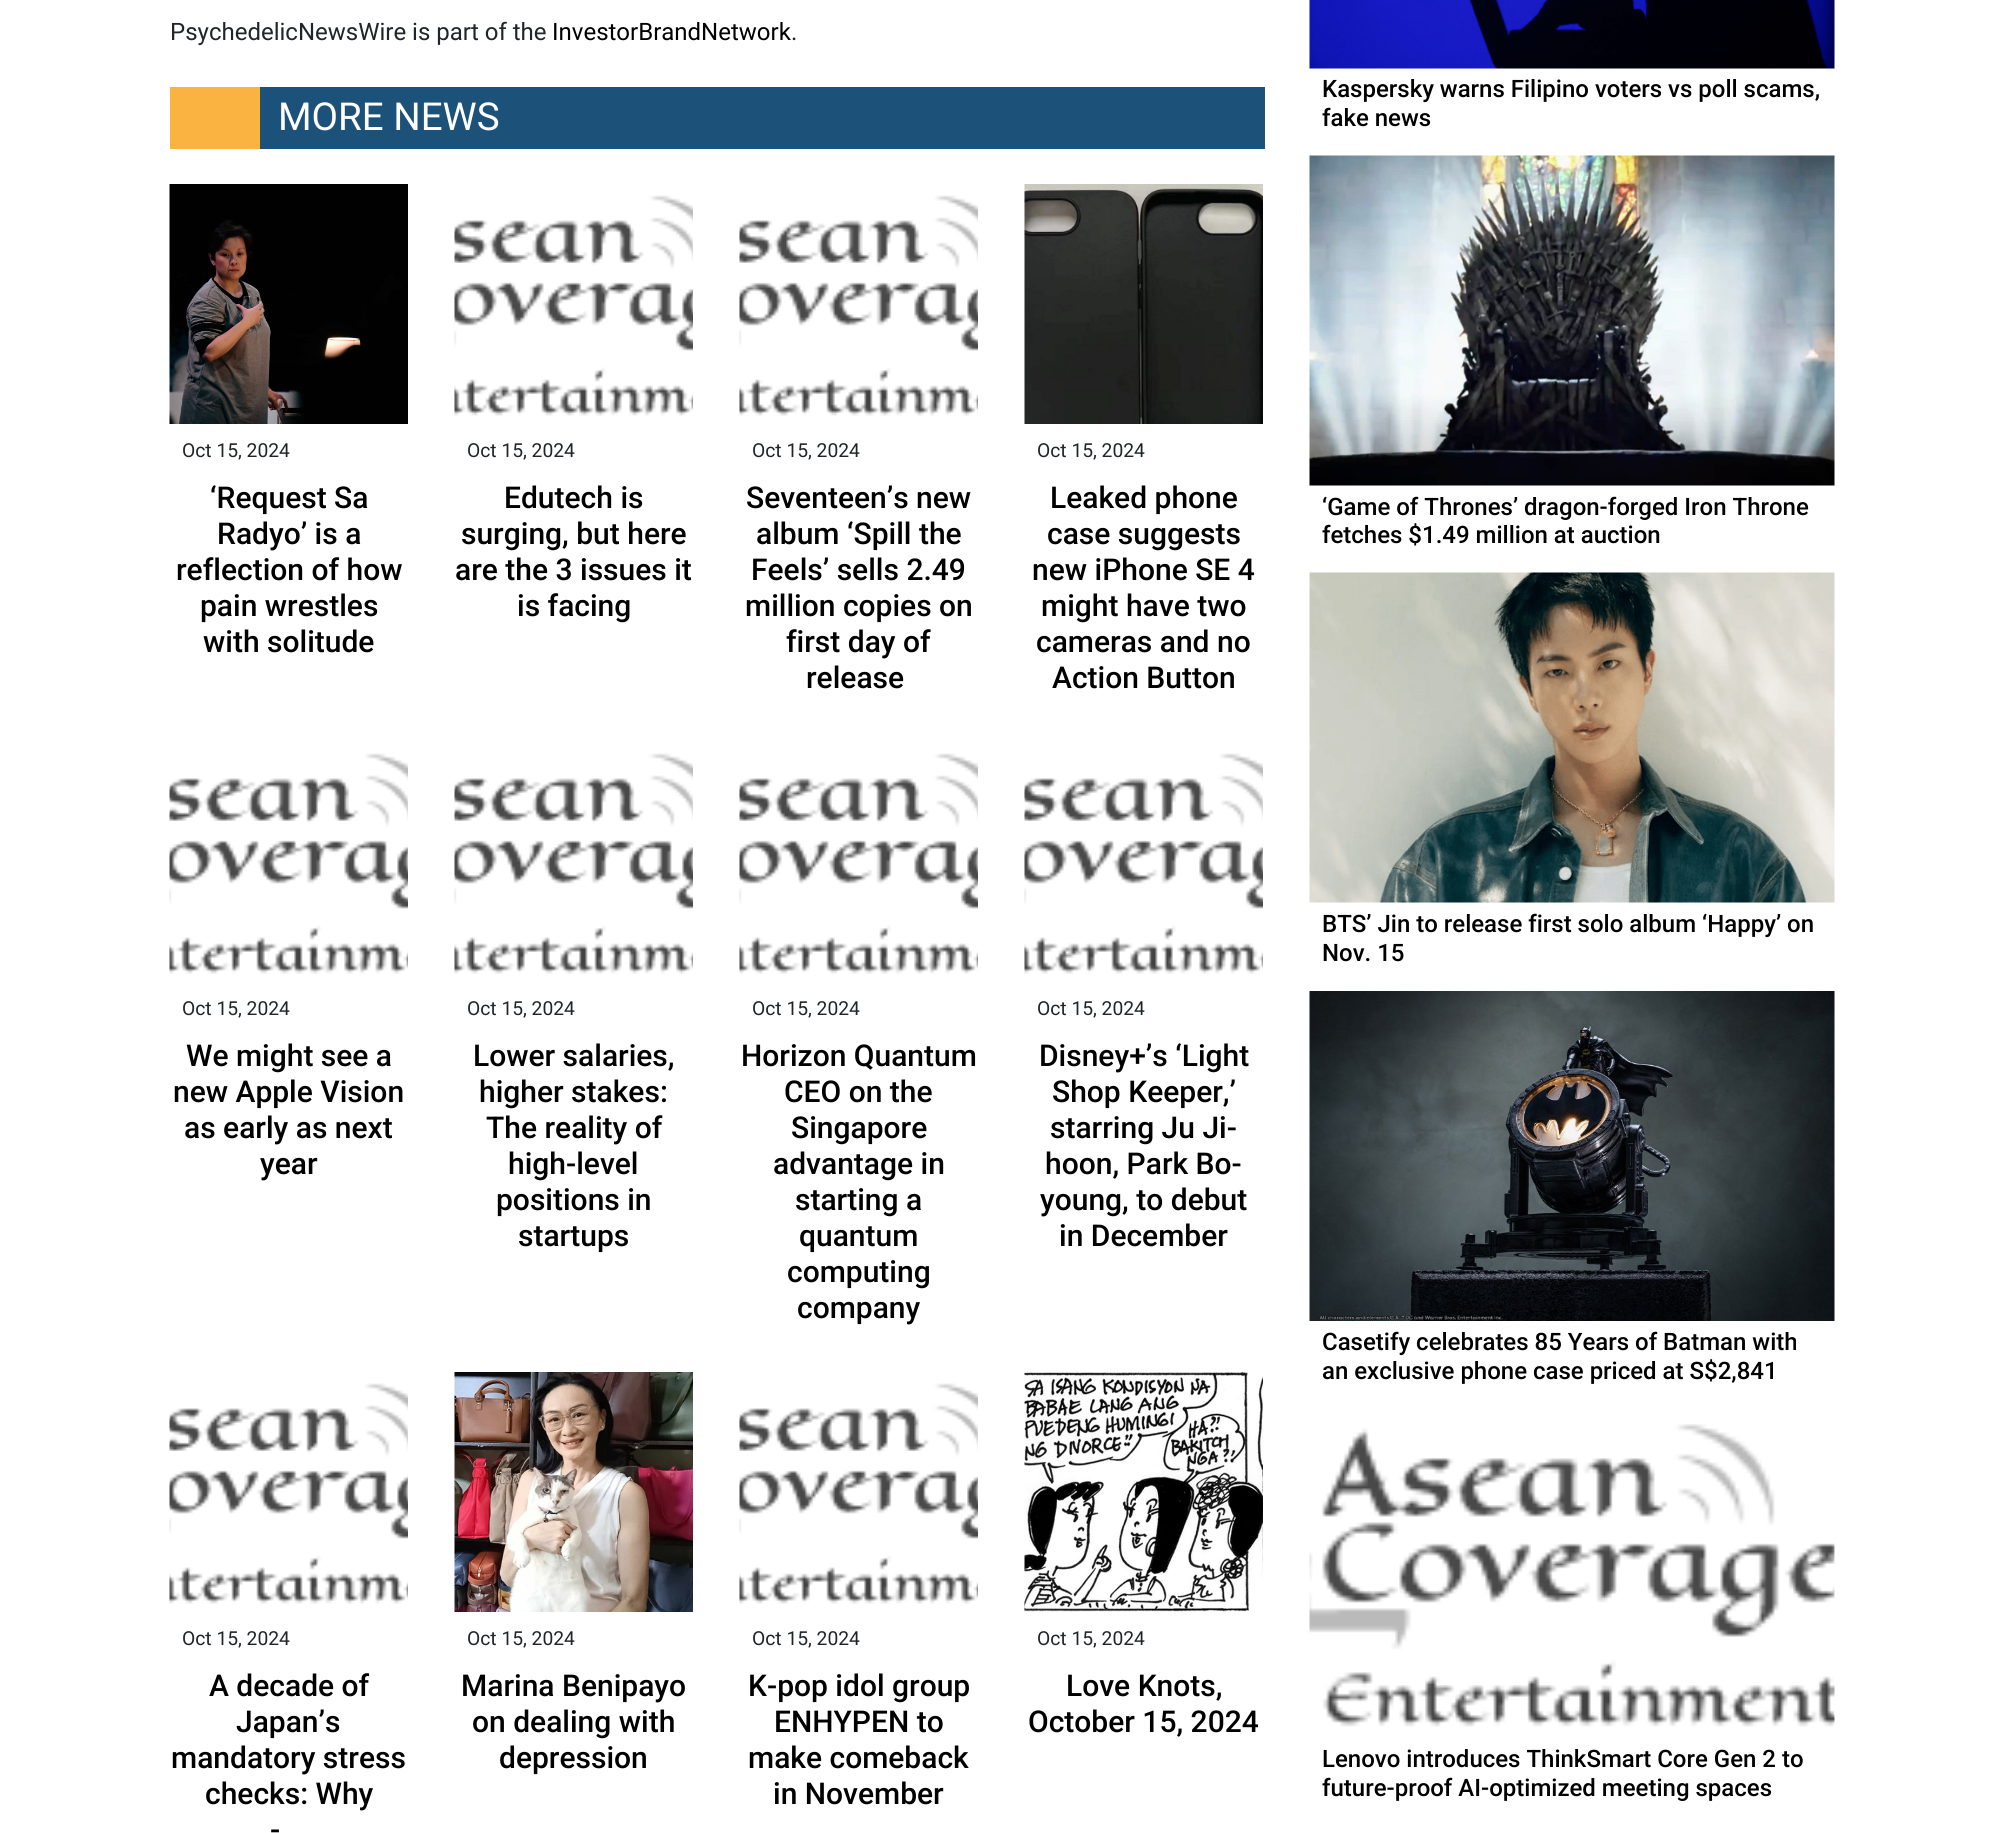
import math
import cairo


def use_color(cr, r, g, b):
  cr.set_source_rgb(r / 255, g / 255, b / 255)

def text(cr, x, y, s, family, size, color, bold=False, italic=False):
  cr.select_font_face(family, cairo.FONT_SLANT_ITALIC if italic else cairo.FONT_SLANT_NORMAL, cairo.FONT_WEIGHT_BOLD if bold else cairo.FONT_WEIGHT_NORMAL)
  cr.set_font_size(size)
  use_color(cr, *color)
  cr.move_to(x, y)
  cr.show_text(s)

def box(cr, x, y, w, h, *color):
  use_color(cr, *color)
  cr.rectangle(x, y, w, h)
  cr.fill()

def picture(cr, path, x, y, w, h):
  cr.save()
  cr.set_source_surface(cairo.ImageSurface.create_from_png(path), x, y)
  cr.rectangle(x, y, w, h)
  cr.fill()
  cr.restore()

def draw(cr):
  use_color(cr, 255, 255, 255)
  cr.paint()
  box(cr, 260, 87, 1005, 62, 28, 81, 121)
  box(cr, 170, 87, 90, 62, 250, 179, 65)
  picture(cr, "img_01.png", 169, 184, 239, 240)
  picture(cr, "img_02.png", 454, 195, 239, 221)
  picture(cr, "img_02.png", 739, 195, 239, 221)
  picture(cr, "img_03.png", 1024, 184, 239, 240)
  picture(cr, "img_02.png", 169, 753, 239, 221)
  picture(cr, "img_02.png", 454, 753, 239, 221)
  picture(cr, "img_02.png", 739, 753, 239, 221)
  picture(cr, "img_02.png", 1024, 753, 239, 221)
  picture(cr, "img_02.png", 169, 1383, 239, 221)
  picture(cr, "img_04.png", 454, 1372, 239, 240)
  picture(cr, "img_02.png", 739, 1383, 239, 221)
  picture(cr, "img_05.png", 1024, 1372, 239, 240)
  picture(cr, "img_06.png", 1309, 0, 526, 69)
  picture(cr, "img_07.png", 1309, 155, 526, 331)
  picture(cr, "img_08.png", 1309, 572, 526, 331)
  picture(cr, "img_09.png", 1309, 991, 526, 330)
  picture(cr, "img_10.png", 1309, 1424, 526, 303)
  text(cr, 170, 40, "PsychedelicNewsWire is part of the", "Roboto", 24, (33, 37, 41))
  text(cr, 552, 40, "InvestorBrandNetwork", "Roboto", 24, (0, 0, 0))
  text(cr, 791, 40, ".", "Roboto", 24, (33, 37, 41))
  text(cr, 278, 130, "MORE NEWS", "Roboto", 38.5, (255, 255, 255))
  text(cr, 182, 457, "Oct 15, 2024", "Roboto", 19.25, (33, 37, 41))
  text(cr, 210, 508, "‘Request Sa", "Roboto Medium", 30, (0, 0, 0))
  text(cr, 217, 544, "Radyo’ is a", "Roboto Medium", 30, (0, 0, 0))
  text(cr, 176, 580, "reflection of how", "Roboto Medium", 30, (0, 0, 0))
  text(cr, 200, 616, "pain wrestles", "Roboto Medium", 30, (0, 0, 0))
  text(cr, 203, 652, "with solitude", "Roboto Medium", 30, (0, 0, 0))
  text(cr, 467, 457, "Oct 15, 2024", "Roboto", 19.25, (33, 37, 41))
  text(cr, 504, 508, "Edutech is", "Roboto Medium", 30, (0, 0, 0))
  text(cr, 461, 544, "surging, but here", "Roboto Medium", 30, (0, 0, 0))
  text(cr, 455, 580, "are the 3 issues it", "Roboto Medium", 30, (0, 0, 0))
  text(cr, 517, 616, "is facing", "Roboto Medium", 30, (0, 0, 0))
  text(cr, 752, 457, "Oct 15, 2024", "Roboto", 19.25, (33, 37, 41))
  text(cr, 746, 508, "Seventeen’s new", "Roboto Medium", 30, (0, 0, 0))
  text(cr, 756, 544, "album ‘Spill the", "Roboto Medium", 30, (0, 0, 0))
  text(cr, 751, 580, "Feels’ sells 2.49", "Roboto Medium", 30, (0, 0, 0))
  text(cr, 745, 616, "million copies on", "Roboto Medium", 30, (0, 0, 0))
  text(cr, 786, 652, "first day of", "Roboto Medium", 30, (0, 0, 0))
  text(cr, 806, 688, "release", "Roboto Medium", 30, (0, 0, 0))
  text(cr, 1037, 457, "Oct 15, 2024", "Roboto", 19.25, (33, 37, 41))
  text(cr, 1050, 508, "Leaked phone", "Roboto Medium", 30, (0, 0, 0))
  text(cr, 1047, 544, "case suggests", "Roboto Medium", 30, (0, 0, 0))
  text(cr, 1032, 580, "new iPhone SE 4", "Roboto Medium", 30, (0, 0, 0))
  text(cr, 1041, 616, "might have two", "Roboto Medium", 30, (0, 0, 0))
  text(cr, 1036, 652, "cameras and no", "Roboto Medium", 30, (0, 0, 0))
  text(cr, 1052, 688, "Action Button", "Roboto Medium", 30, (0, 0, 0))
  text(cr, 182, 1015, "Oct 15, 2024", "Roboto", 19.25, (33, 37, 41))
  text(cr, 186, 1066, "We might see a", "Roboto Medium", 30, (0, 0, 0))
  text(cr, 173, 1102, "new Apple Vision", "Roboto Medium", 30, (0, 0, 0))
  text(cr, 184, 1138, "as early as next", "Roboto Medium", 30, (0, 0, 0))
  text(cr, 260, 1174, "year", "Roboto Medium", 30, (0, 0, 0))
  text(cr, 467, 1015, "Oct 15, 2024", "Roboto", 19.25, (33, 37, 41))
  text(cr, 473, 1066, "Lower salaries,", "Roboto Medium", 30, (0, 0, 0))
  text(cr, 479, 1102, "higher stakes:", "Roboto Medium", 30, (0, 0, 0))
  text(cr, 486, 1138, "The reality of", "Roboto Medium", 30, (0, 0, 0))
  text(cr, 508, 1174, "high-level", "Roboto Medium", 30, (0, 0, 0))
  text(cr, 496, 1210, "positions in", "Roboto Medium", 30, (0, 0, 0))
  text(cr, 518, 1246, "startups", "Roboto Medium", 30, (0, 0, 0))
  text(cr, 752, 1015, "Oct 15, 2024", "Roboto", 19.25, (33, 37, 41))
  text(cr, 741, 1066, "Horizon Quantum", "Roboto Medium", 30, (0, 0, 0))
  text(cr, 784, 1102, "CEO on the", "Roboto Medium", 30, (0, 0, 0))
  text(cr, 791, 1138, "Singapore", "Roboto Medium", 30, (0, 0, 0))
  text(cr, 773, 1174, "advantage in", "Roboto Medium", 30, (0, 0, 0))
  text(cr, 795, 1210, "starting a", "Roboto Medium", 30, (0, 0, 0))
  text(cr, 799, 1246, "quantum", "Roboto Medium", 30, (0, 0, 0))
  text(cr, 787, 1282, "computing", "Roboto Medium", 30, (0, 0, 0))
  text(cr, 797, 1318, "company", "Roboto Medium", 30, (0, 0, 0))
  text(cr, 1037, 1015, "Oct 15, 2024", "Roboto", 19.25, (33, 37, 41))
  text(cr, 1039, 1066, "Disney+’s ‘Light", "Roboto Medium", 30, (0, 0, 0))
  text(cr, 1052, 1102, "Shop Keeper,’", "Roboto Medium", 30, (0, 0, 0))
  text(cr, 1050, 1138, "starring Ju Ji-", "Roboto Medium", 30, (0, 0, 0))
  text(cr, 1045, 1174, "hoon, Park Bo-", "Roboto Medium", 30, (0, 0, 0))
  text(cr, 1040, 1210, "young, to debut", "Roboto Medium", 30, (0, 0, 0))
  text(cr, 1059, 1246, "in December", "Roboto Medium", 30, (0, 0, 0))
  text(cr, 182, 1645, "Oct 15, 2024", "Roboto", 19.25, (33, 37, 41))
  text(cr, 209, 1696, "A decade of", "Roboto Medium", 30, (0, 0, 0))
  text(cr, 236, 1732, "Japan’s", "Roboto Medium", 30, (0, 0, 0))
  text(cr, 171, 1768, "mandatory stress", "Roboto Medium", 30, (0, 0, 0))
  text(cr, 205, 1804, "checks: Why", "Roboto Medium", 30, (0, 0, 0))
  text(cr, 270, 1840, "-", "Roboto Medium", 30, (0, 0, 0))
  text(cr, 467, 1645, "Oct 15, 2024", "Roboto", 19.25, (33, 37, 41))
  text(cr, 461, 1696, "Marina Benipayo", "Roboto Medium", 30, (0, 0, 0))
  text(cr, 472, 1732, "on dealing with", "Roboto Medium", 30, (0, 0, 0))
  text(cr, 499, 1768, "depression", "Roboto Medium", 30, (0, 0, 0))
  text(cr, 752, 1645, "Oct 15, 2024", "Roboto", 19.25, (33, 37, 41))
  text(cr, 748, 1696, "K-pop idol group", "Roboto Medium", 30, (0, 0, 0))
  text(cr, 774, 1732, "ENHYPEN to", "Roboto Medium", 30, (0, 0, 0))
  text(cr, 748, 1768, "make comeback", "Roboto Medium", 30, (0, 0, 0))
  text(cr, 773, 1804, "in November", "Roboto Medium", 30, (0, 0, 0))
  text(cr, 1037, 1645, "Oct 15, 2024", "Roboto", 19.25, (33, 37, 41))
  text(cr, 1066, 1696, "Love Knots,", "Roboto Medium", 30, (0, 0, 0))
  text(cr, 1028, 1732, "October 15, 2024", "Roboto Medium", 30, (0, 0, 0))
  text(cr, 1322, 97, "Kaspersky warns Filipino voters vs poll scams,", "Roboto Medium", 24, (0, 0, 0))
  text(cr, 1322, 126, "fake news", "Roboto Medium", 24, (0, 0, 0))
  text(cr, 1322, 515, "‘Game of Thrones’ dragon-forged Iron Throne", "Roboto Medium", 24, (0, 0, 0))
  text(cr, 1322, 543, "fetches $1.49 million at auction", "Roboto Medium", 24, (0, 0, 0))
  text(cr, 1322, 932, "BTS’ Jin to release first solo album ‘Happy’ on", "Roboto Medium", 24, (0, 0, 0))
  text(cr, 1322, 961, "Nov. 15", "Roboto Medium", 24, (0, 0, 0))
  text(cr, 1322, 1350, "Casetify celebrates 85 Years of Batman with", "Roboto Medium", 24, (0, 0, 0))
  text(cr, 1322, 1379, "an exclusive phone case priced at S$2,841", "Roboto Medium", 24, (0, 0, 0))
  text(cr, 1322, 1767, "Lenovo introduces ThinkSmart Core Gen 2 to", "Roboto Medium", 24, (0, 0, 0))
  text(cr, 1322, 1796, "future-proof AI-optimized meeting spaces", "Roboto Medium", 24, (0, 0, 0))


surface = cairo.ImageSurface(cairo.FORMAT_RGB24, 2004, 1833)
cr = cairo.Context(surface)
options = cairo.FontOptions()
options.set_hint_metrics(cairo.HINT_METRICS_OFF)
options.set_hint_style(cairo.HINT_STYLE_NONE)
cr.set_font_options(options)
cr.set_miter_limit(4)
draw(cr)
surface.write_to_png("out.png")
